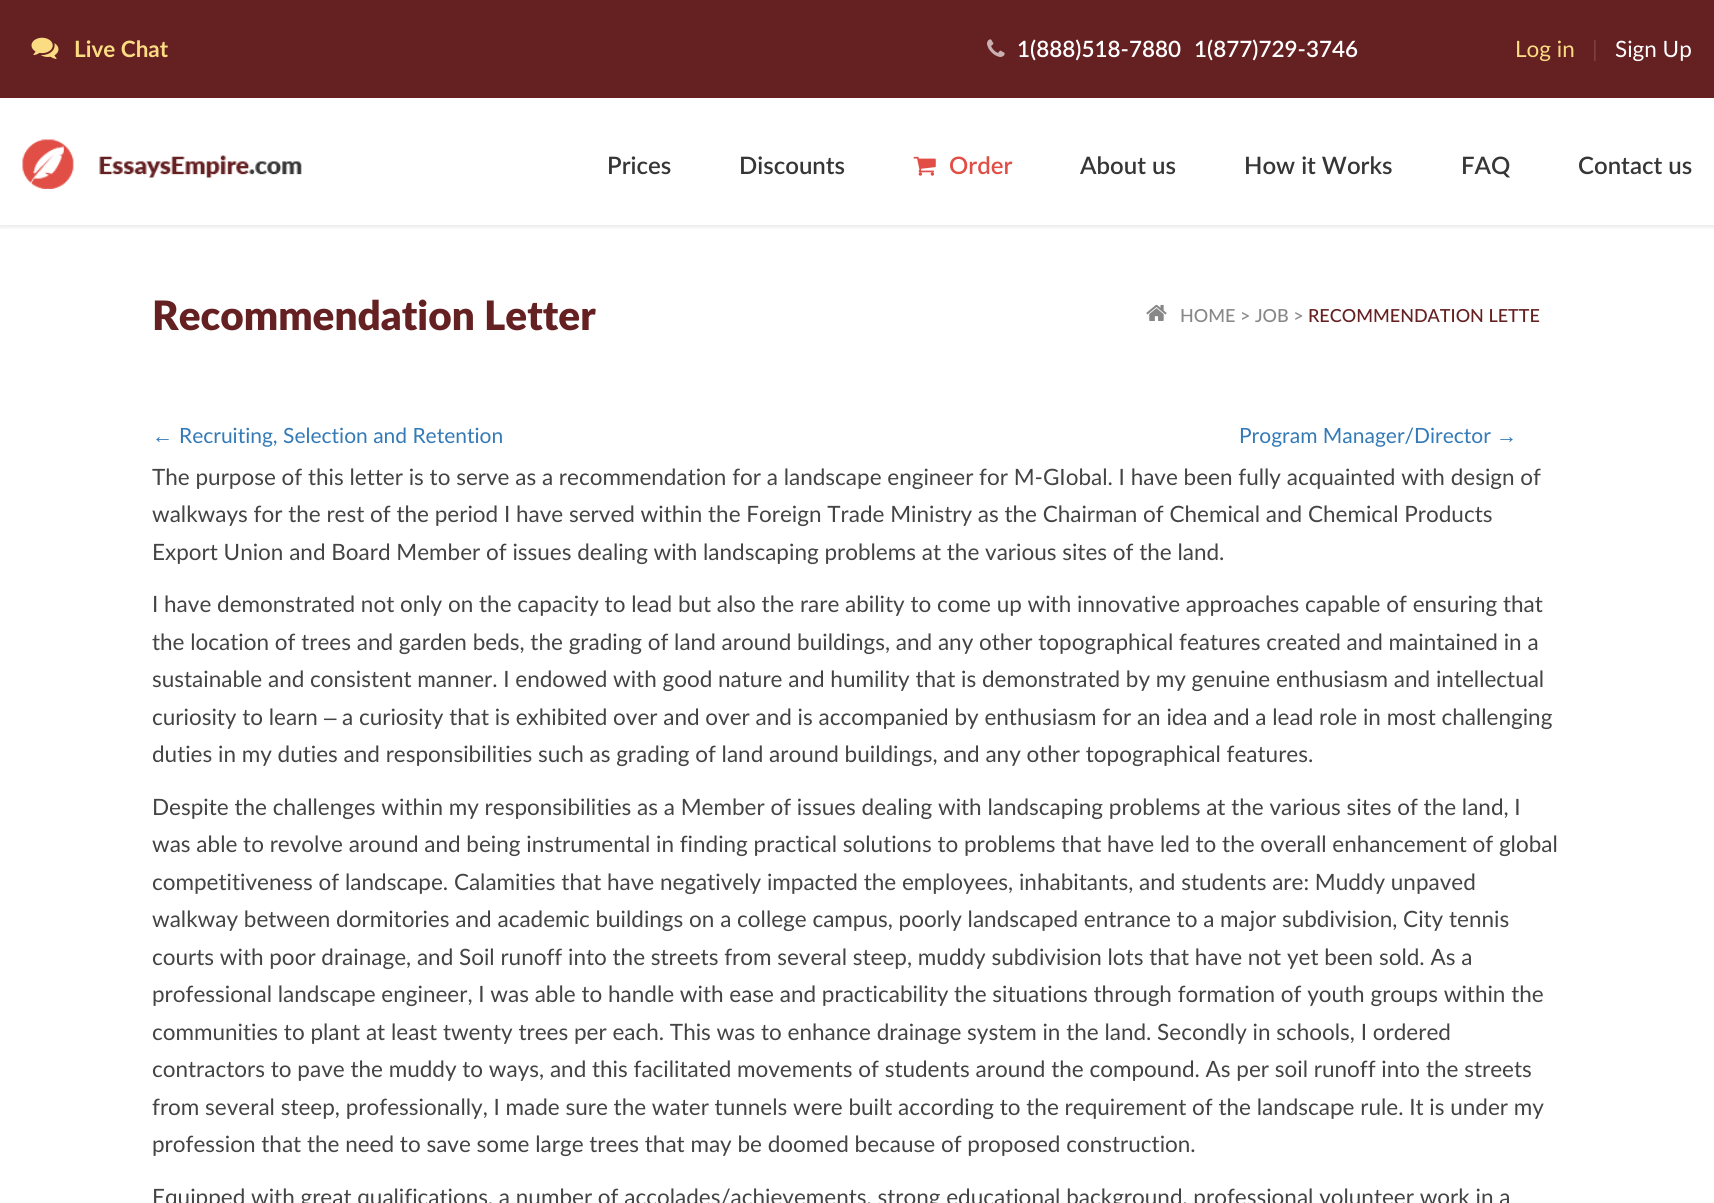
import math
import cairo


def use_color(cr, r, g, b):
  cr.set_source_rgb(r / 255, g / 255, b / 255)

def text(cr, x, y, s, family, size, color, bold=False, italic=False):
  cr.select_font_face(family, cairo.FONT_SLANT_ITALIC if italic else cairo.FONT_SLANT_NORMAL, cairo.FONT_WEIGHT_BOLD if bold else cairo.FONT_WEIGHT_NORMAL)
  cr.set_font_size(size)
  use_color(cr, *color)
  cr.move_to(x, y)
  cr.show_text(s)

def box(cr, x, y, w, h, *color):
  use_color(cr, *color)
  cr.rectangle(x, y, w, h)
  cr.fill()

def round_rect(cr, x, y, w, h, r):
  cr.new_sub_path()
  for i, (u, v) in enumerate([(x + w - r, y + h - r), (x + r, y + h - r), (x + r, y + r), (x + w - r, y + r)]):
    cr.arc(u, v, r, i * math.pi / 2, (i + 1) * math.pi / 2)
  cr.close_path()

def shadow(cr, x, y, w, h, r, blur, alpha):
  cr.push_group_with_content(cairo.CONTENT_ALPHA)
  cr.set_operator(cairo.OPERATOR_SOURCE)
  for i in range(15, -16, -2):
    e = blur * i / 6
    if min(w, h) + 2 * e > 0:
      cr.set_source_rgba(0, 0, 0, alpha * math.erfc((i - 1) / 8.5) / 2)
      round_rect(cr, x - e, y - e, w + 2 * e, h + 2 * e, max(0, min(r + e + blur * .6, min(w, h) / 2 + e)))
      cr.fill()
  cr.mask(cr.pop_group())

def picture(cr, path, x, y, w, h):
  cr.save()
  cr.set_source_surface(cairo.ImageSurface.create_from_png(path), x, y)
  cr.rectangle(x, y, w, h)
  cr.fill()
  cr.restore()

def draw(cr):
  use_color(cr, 255, 255, 255)
  cr.paint()
  cr.save()
  cr.rectangle(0, 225, 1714, 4)
  cr.clip()
  use_color(cr, 0, 0, 0)
  shadow(cr, 0, 0, 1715, 225, 0, 4, 0.15)
  cr.restore()
  box(cr, 0, 0, 1714, 98, 101, 32, 34)
  picture(cr, "img_01.png", 31, 37, 28, 22)
  picture(cr, "img_02.png", 987, 39, 18, 18)
  picture(cr, "img_03.png", 22, 139, 280, 50)
  picture(cr, "img_04.png", 913, 156, 23, 20)
  picture(cr, "img_05.png", 1146, 304, 21, 17)
  text(cr, 74, 57, "Live Chat", "Lato", 22.5, (251, 220, 131), bold=True)
  text(cr, 1017, 57, "1(888)518-7880", "Lato SemiBold", 22.5, (255, 255, 255))
  text(cr, 1194, 57, "1(877)729-3746", "Lato SemiBold", 22.5, (255, 255, 255))
  text(cr, 1515, 57, "Log in", "Lato", 22.5, (251, 220, 131))
  text(cr, 1592, 57, "|", "Lato", 22.5, (124, 65, 67))
  text(cr, 1615, 57, "Sign Up", "Lato", 22.5, (255, 255, 255))
  text(cr, 607, 174, "Prices", "Lato SemiBold", 24, (54, 54, 54))
  text(cr, 739, 174, "Discounts", "Lato SemiBold", 24, (54, 54, 54))
  text(cr, 949, 174, "Order", "Lato SemiBold", 24, (224, 78, 70))
  text(cr, 1080, 174, "About us", "Lato SemiBold", 24, (54, 54, 54))
  text(cr, 1244, 174, "How it Works", "Lato SemiBold", 24, (54, 54, 54))
  text(cr, 1461, 174, "FAQ", "Lato SemiBold", 24, (54, 54, 54))
  text(cr, 1578, 174, "Contact us", "Lato SemiBold", 24, (54, 54, 54))
  text(cr, 152, 330, "Recommendation Letter", "Lato Black", 40.5, (101, 32, 34))
  text(cr, 1180, 322, "HOME > JOB >", "Lato Medium", 18, (135, 135, 135))
  text(cr, 1308, 322, "RECOMMENDATION LETTE", "Lato Medium", 18, (101, 32, 34))
  text(cr, 152, 443, "←", "Liberation Sans", 21, (51, 122, 183))
  text(cr, 179, 443, "Recruiting, Selection and Retention", "Lato", 21, (51, 122, 183))
  text(cr, 1239, 443, "Program Manager/Director", "Lato", 21, (51, 122, 183))
  text(cr, 1496, 443, "→", "Liberation Sans", 21, (51, 122, 183))
  text(cr, 152, 485, "The purpose of this letter is to serve as a recommendation for a landscape engineer for M-GIobal. I have been fully acquainted with design of", "Lato", 22.5, (68, 68, 68))
  text(cr, 152, 522, "walkways for the rest of the period I have served within the Foreign Trade Ministry as the Chairman of Chemical and Chemical Products", "Lato", 22.5, (68, 68, 68))
  text(cr, 152, 560, "Export Union and Board Member of issues dealing with landscaping problems at the various sites of the land.", "Lato", 22.5, (68, 68, 68))
  text(cr, 152, 612, "I have demonstrated not only on the capacity to lead but also the rare ability to come up with innovative approaches capable of ensuring that", "Lato", 22.5, (68, 68, 68))
  text(cr, 152, 650, "the location of trees and garden beds, the grading of land around buildings, and any other topographical features created and maintained in a", "Lato", 22.5, (68, 68, 68))
  text(cr, 152, 687, "sustainable and consistent manner. I endowed with good nature and humility that is demonstrated by my genuine enthusiasm and intellectual", "Lato", 22.5, (68, 68, 68))
  text(cr, 152, 725, "curiosity to learn", "Lato", 22.5, (68, 68, 68))
  text(cr, 324, 725, "–", "Liberation Sans", 22.5, (68, 68, 68))
  text(cr, 342, 725, "a curiosity that is exhibited over and over and is accompanied by enthusiasm for an idea and a lead role in most challenging", "Lato", 22.5, (68, 68, 68))
  text(cr, 152, 762, "duties in my duties and responsibilities such as grading of land around buildings, and any other topographical features.", "Lato", 22.5, (68, 68, 68))
  text(cr, 152, 815, "Despite the challenges within my responsibilities as a Member of issues dealing with landscaping problems at the various sites of the land, I", "Lato", 22.5, (68, 68, 68))
  text(cr, 152, 852, "was able to revolve around and being instrumental in finding practical solutions to problems that have led to the overall enhancement of global", "Lato", 22.5, (68, 68, 68))
  text(cr, 152, 890, "competitiveness of landscape. Calamities that have negatively impacted the employees, inhabitants, and students are: Muddy unpaved", "Lato", 22.5, (68, 68, 68))
  text(cr, 152, 927, "walkway between dormitories and academic buildings on a college campus, poorly landscaped entrance to a major subdivision, City tennis", "Lato", 22.5, (68, 68, 68))
  text(cr, 152, 965, "courts with poor drainage, and Soil runoff into the streets from several steep, muddy subdivision lots that have not yet been sold. As a", "Lato", 22.5, (68, 68, 68))
  text(cr, 152, 1002, "professional landscape engineer, I was able to handle with ease and practicability the situations through formation of youth groups within the", "Lato", 22.5, (68, 68, 68))
  text(cr, 152, 1040, "communities to plant at least twenty trees per each. This was to enhance drainage system in the land. Secondly in schools, I ordered", "Lato", 22.5, (68, 68, 68))
  text(cr, 152, 1077, "contractors to pave the muddy to ways, and this facilitated movements of students around the compound. As per soil runoff into the streets", "Lato", 22.5, (68, 68, 68))
  text(cr, 152, 1115, "from several steep, professionally, I made sure the water tunnels were built according to the requirement of the landscape rule. It is under my", "Lato", 22.5, (68, 68, 68))
  text(cr, 152, 1152, "profession that the need to save some large trees that may be doomed because of proposed construction.", "Lato", 22.5, (68, 68, 68))
  text(cr, 152, 1205, "Equipped with great qualifications, a number of accolades/achievements, strong educational background, professional volunteer work in a", "Lato", 22.5, (68, 68, 68))


surface = cairo.ImageSurface(cairo.FORMAT_RGB24, 1714, 1203)
cr = cairo.Context(surface)
options = cairo.FontOptions()
options.set_hint_metrics(cairo.HINT_METRICS_OFF)
options.set_hint_style(cairo.HINT_STYLE_NONE)
cr.set_font_options(options)
cr.set_miter_limit(4)
draw(cr)
surface.write_to_png("out.png")
